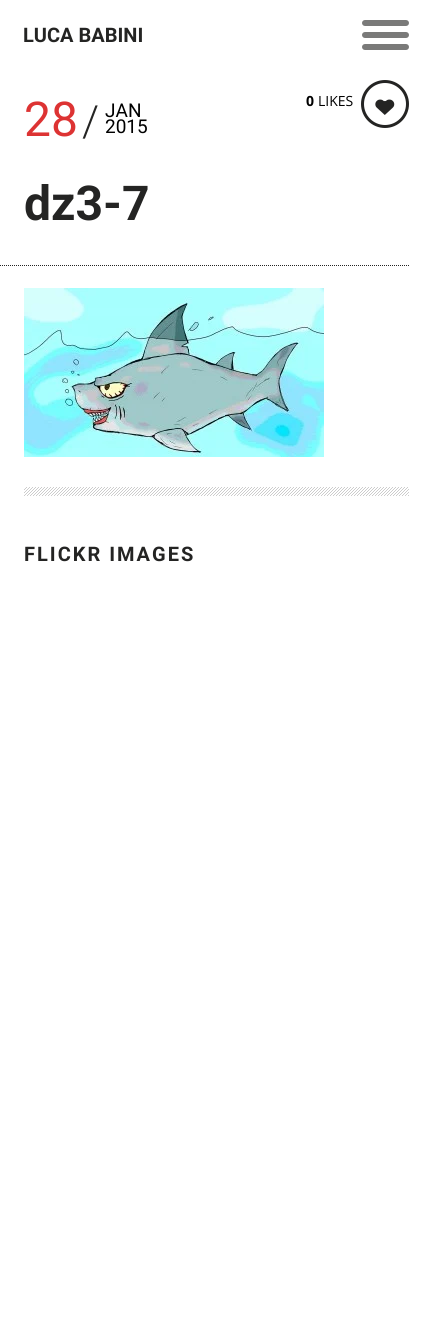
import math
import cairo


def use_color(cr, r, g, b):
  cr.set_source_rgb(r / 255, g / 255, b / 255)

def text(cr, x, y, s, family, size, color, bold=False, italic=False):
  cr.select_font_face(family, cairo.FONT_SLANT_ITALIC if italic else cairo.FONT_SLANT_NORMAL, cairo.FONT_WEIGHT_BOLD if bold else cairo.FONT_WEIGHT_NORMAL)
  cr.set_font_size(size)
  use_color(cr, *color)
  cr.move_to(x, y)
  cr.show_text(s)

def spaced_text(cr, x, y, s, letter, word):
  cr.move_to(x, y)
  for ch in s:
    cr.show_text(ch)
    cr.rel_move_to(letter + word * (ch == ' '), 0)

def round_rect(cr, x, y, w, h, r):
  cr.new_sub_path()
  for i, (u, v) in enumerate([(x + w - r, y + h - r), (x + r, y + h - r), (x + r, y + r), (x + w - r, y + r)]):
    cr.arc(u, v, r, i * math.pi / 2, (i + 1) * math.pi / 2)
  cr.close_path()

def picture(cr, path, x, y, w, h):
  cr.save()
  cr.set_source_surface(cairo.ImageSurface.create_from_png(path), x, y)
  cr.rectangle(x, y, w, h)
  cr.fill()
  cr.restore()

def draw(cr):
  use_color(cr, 255, 255, 255)
  cr.paint()
  use_color(cr, 122, 122, 121)
  round_rect(cr, 362, 32, 47, 6, 3)
  cr.fill()
  round_rect(cr, 362, 20, 47, 6, 3)
  cr.fill()
  round_rect(cr, 362, 44, 47, 6, 3)
  cr.fill()
  cr.new_path()
  cr.move_to(-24, 265.5)
  cr.line_to(409, 265.5)
  use_color(cr, 36, 36, 35)
  cr.set_line_width(1)
  cr.set_dash([1, 1])
  cr.stroke()
  cr.arc(385, 104, 22.5, 0, 2 * math.pi)
  cr.set_line_width(3)
  cr.set_dash([])
  cr.stroke()
  cr.arc(385, 104, 3, 0, 2 * math.pi)
  cr.fill()
  picture(cr, "img_01.png", 375, 99, 20, 16)
  picture(cr, "img_02.png", 24, 288, 300, 169)
  picture(cr, "img_03.png", 24, 487, 385, 9)
  text(cr, 23, 42, "LUCA BABINI", "Roboto", 20, (36, 36, 35), bold=True)
  text(cr, 24, 136, "28", "Roboto", 48, (221, 51, 51))
  text(cr, 82, 136, "/", "Roboto Light", 43, (36, 36, 35))
  text(cr, 105, 117, "JAN", "Roboto", 19, (0, 0, 0))
  text(cr, 105, 133, "2015", "Roboto", 19, (0, 0, 0))
  text(cr, 24, 220, "dz3-7", "Roboto", 48, (36, 36, 35), bold=True)
  text(cr, 306, 106, "0", "Open Sans", 14, (0, 0, 0), bold=True)
  text(cr, 318, 106, "LIKES", "Open Sans", 14, (0, 0, 0))
  cr.select_font_face("Roboto", cairo.FONT_SLANT_NORMAL, cairo.FONT_WEIGHT_BOLD)
  cr.set_font_size(20)
  use_color(cr, 36, 36, 35)
  spaced_text(cr, 24, 561, "FLICKR IMAGES", 2, 0)


surface = cairo.ImageSurface(cairo.FORMAT_RGB24, 433, 1321)
cr = cairo.Context(surface)
options = cairo.FontOptions()
options.set_hint_metrics(cairo.HINT_METRICS_OFF)
options.set_hint_style(cairo.HINT_STYLE_NONE)
cr.set_font_options(options)
cr.set_miter_limit(4)
draw(cr)
surface.write_to_png("out.png")
